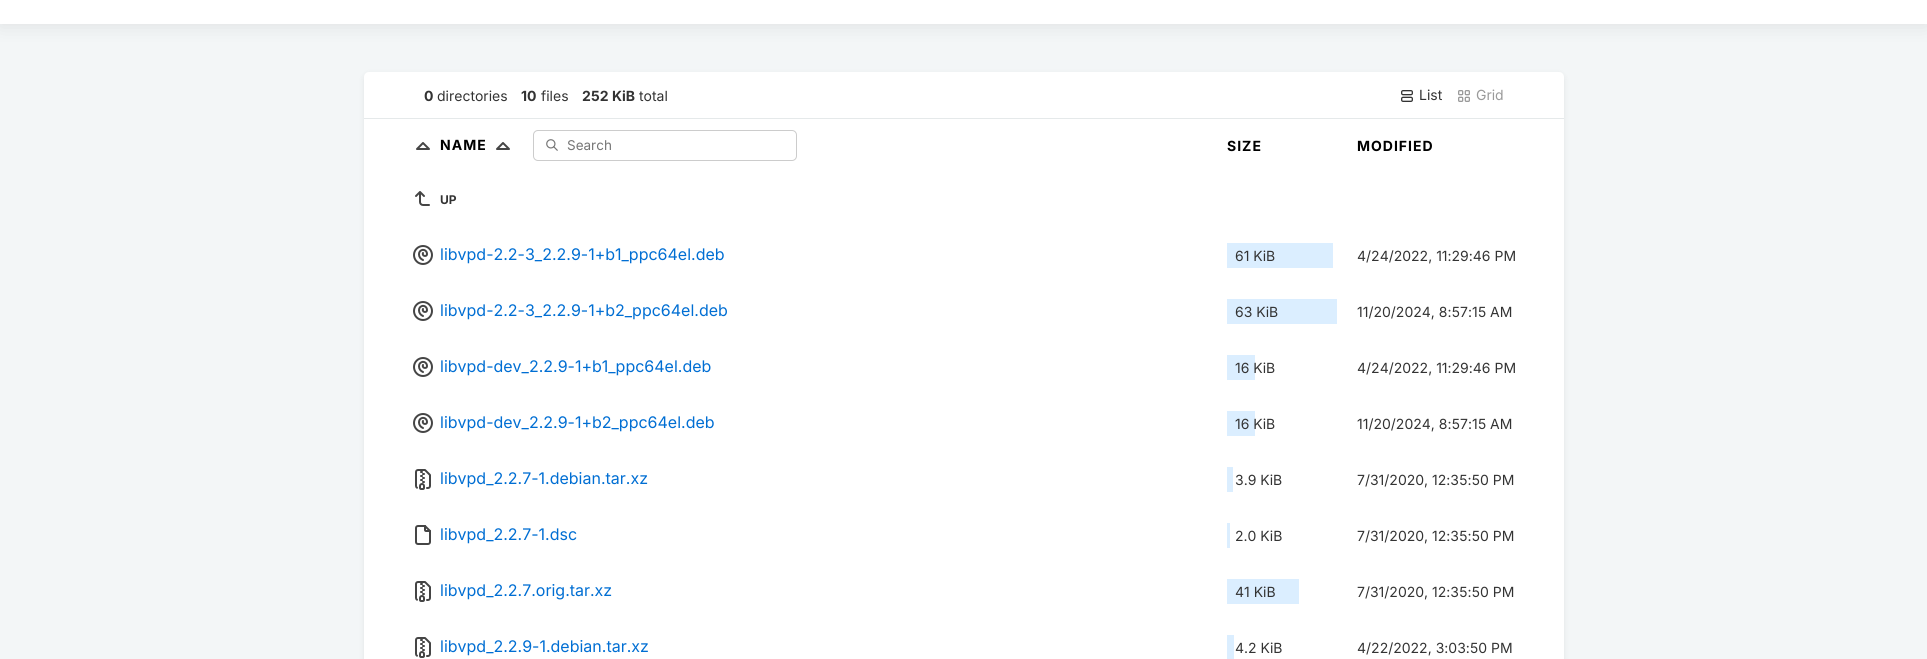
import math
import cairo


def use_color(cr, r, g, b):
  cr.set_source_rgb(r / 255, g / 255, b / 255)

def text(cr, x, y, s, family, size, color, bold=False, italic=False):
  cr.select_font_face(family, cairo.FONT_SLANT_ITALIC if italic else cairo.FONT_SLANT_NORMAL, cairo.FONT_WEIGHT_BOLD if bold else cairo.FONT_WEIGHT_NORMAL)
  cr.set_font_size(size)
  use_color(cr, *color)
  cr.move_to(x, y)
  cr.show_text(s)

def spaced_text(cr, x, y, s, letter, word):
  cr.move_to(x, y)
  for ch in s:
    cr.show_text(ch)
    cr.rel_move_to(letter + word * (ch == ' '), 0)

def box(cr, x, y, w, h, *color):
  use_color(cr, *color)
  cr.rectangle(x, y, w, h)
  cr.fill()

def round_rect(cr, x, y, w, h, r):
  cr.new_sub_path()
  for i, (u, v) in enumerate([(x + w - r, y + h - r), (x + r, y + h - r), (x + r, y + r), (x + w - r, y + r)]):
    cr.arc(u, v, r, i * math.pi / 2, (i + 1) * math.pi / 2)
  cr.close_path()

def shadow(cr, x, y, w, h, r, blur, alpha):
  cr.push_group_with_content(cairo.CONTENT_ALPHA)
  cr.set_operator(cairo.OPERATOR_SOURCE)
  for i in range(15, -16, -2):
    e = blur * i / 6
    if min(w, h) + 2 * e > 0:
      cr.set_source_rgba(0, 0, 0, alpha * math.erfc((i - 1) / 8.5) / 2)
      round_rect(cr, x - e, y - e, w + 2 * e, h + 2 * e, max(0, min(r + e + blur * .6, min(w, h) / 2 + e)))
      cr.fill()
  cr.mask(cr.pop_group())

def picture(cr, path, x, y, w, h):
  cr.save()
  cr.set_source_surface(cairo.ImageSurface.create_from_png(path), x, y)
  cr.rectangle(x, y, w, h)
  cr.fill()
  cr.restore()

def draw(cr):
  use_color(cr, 243, 246, 247)
  cr.paint()
  use_color(cr, 0, 0, 0)
  shadow(cr, 0, -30, 1927, 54, 0, 10, 0.1)
  box(cr, 0, 0, 1927, 24, 255, 255, 255)
  use_color(cr, 0, 0, 0)
  shadow(cr, 363, 73, 1202, 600, 6, 2.5, 0.05)
  use_color(cr, 255, 255, 255)
  round_rect(cr, 364, 72, 1200, 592, 5)
  cr.fill()
  box(cr, 364, 118, 1200, 1, 229, 233, 234)
  picture(cr, "img_01.png", 1401, 90, 12, 12)
  picture(cr, "img_02.png", 1458, 90, 12, 12)
  cr.new_path()
  cr.move_to(429, 149)
  cr.line_to(423, 143)
  cr.line_to(417, 149)
  cr.line_to(429, 149)
  use_color(cr, 69, 69, 69)
  cr.set_line_cap(cairo.LINE_CAP_ROUND)
  cr.set_line_join(cairo.LINE_JOIN_ROUND)
  cr.stroke()
  cr.new_path()
  cr.move_to(509, 149)
  cr.line_to(503, 143)
  cr.line_to(497, 149)
  cr.line_to(509, 149)
  cr.stroke()
  picture(cr, "img_03.png", 546, 139, 12, 12)
  round_rect(cr, 533.5, 130.5, 263, 30, 4.5)
  use_color(cr, 204, 204, 204)
  cr.set_line_width(1)
  cr.set_line_cap(cairo.LINE_CAP_BUTT)
  cr.set_line_join(cairo.LINE_JOIN_MITER)
  cr.stroke()
  picture(cr, "img_04.png", 415, 191, 15, 15)
  picture(cr, "img_05.png", 413, 245, 20, 20)
  box(cr, 1227, 243, 106, 25, 219, 238, 255)
  picture(cr, "img_05.png", 413, 301, 20, 20)
  box(cr, 1227, 299, 110, 25, 219, 238, 255)
  picture(cr, "img_05.png", 413, 357, 20, 20)
  box(cr, 1227, 355, 28, 25, 219, 238, 255)
  picture(cr, "img_05.png", 413, 413, 20, 20)
  box(cr, 1227, 411, 28, 25, 219, 238, 255)
  picture(cr, "img_06.png", 415, 469, 16, 21)
  box(cr, 1227, 467, 6, 25, 219, 238, 255)
  picture(cr, "img_07.png", 415, 525, 16, 20)
  box(cr, 1227, 523, 3, 25, 219, 238, 255)
  picture(cr, "img_06.png", 415, 581, 16, 21)
  box(cr, 1227, 579, 72, 25, 219, 238, 255)
  picture(cr, "img_06.png", 415, 637, 16, 21)
  box(cr, 1227, 635, 7, 24, 219, 238, 255)
  text(cr, 424, 101, "0", "Inter", 14, (51, 51, 51), bold=True)
  text(cr, 437, 101, "directories", "Inter", 14, (51, 51, 51))
  text(cr, 521, 101, "10", "Inter", 14, (51, 51, 51), bold=True)
  text(cr, 541, 101, "files", "Inter", 14, (51, 51, 51))
  text(cr, 582, 101, "252 KiB", "Inter", 14, (51, 51, 51), bold=True)
  text(cr, 639, 101, "total", "Inter", 14, (51, 51, 51))
  text(cr, 1419, 100, "List", "Inter", 14, (51, 51, 51))
  text(cr, 1476, 100, "Grid", "Inter", 14, (154, 154, 154))
  cr.select_font_face("Inter", cairo.FONT_SLANT_NORMAL, cairo.FONT_WEIGHT_BOLD)
  use_color(cr, 0, 0, 0)
  spaced_text(cr, 440, 150, "NAME", 1, 0)
  text(cr, 567, 150, "Search", "Inter", 13.5, (117, 117, 117))
  cr.select_font_face("Inter", cairo.FONT_SLANT_NORMAL, cairo.FONT_WEIGHT_BOLD)
  cr.set_font_size(14)
  use_color(cr, 0, 0, 0)
  spaced_text(cr, 1227, 151, "SIZE", 1, 0)
  spaced_text(cr, 1357, 151, "MODIFIED", 1, 0)
  text(cr, 440, 204, "UP", "Inter", 12, (51, 51, 51), bold=True)
  text(cr, 440, 260, "libvpd-2.2-3_2.2.9-1+b1_ppc64el.deb", "Inter", 16, (0, 110, 211))
  text(cr, 1235, 261, "61 KiB", "Inter", 14, (51, 51, 51))
  text(cr, 1357, 261, "4/24/2022, 11:29:46 PM", "Inter", 14, (51, 51, 51))
  text(cr, 440, 316, "libvpd-2.2-3_2.2.9-1+b2_ppc64el.deb", "Inter", 16, (0, 110, 211))
  text(cr, 1235, 317, "63 KiB", "Inter", 14, (51, 51, 51))
  text(cr, 1357, 317, "11/20/2024, 8:57:15 AM", "Inter", 14, (51, 51, 51))
  text(cr, 440, 372, "libvpd-dev_2.2.9-1+b1_ppc64el.deb", "Inter", 16, (0, 110, 211))
  text(cr, 1235, 373, "16 KiB", "Inter", 14, (51, 51, 51))
  text(cr, 1357, 373, "4/24/2022, 11:29:46 PM", "Inter", 14, (51, 51, 51))
  text(cr, 440, 428, "libvpd-dev_2.2.9-1+b2_ppc64el.deb", "Inter", 16, (0, 110, 211))
  text(cr, 1235, 429, "16 KiB", "Inter", 14, (51, 51, 51))
  text(cr, 1357, 429, "11/20/2024, 8:57:15 AM", "Inter", 14, (51, 51, 51))
  text(cr, 440, 484, "libvpd_2.2.7-1.debian.tar.xz", "Inter", 16, (0, 110, 211))
  text(cr, 1235, 485, "3.9 KiB", "Inter", 14, (51, 51, 51))
  text(cr, 1357, 485, "7/31/2020, 12:35:50 PM", "Inter", 14, (51, 51, 51))
  text(cr, 440, 540, "libvpd_2.2.7-1.dsc", "Inter", 16, (0, 110, 211))
  text(cr, 1235, 541, "2.0 KiB", "Inter", 14, (51, 51, 51))
  text(cr, 1357, 541, "7/31/2020, 12:35:50 PM", "Inter", 14, (51, 51, 51))
  text(cr, 440, 596, "libvpd_2.2.7.orig.tar.xz", "Inter", 16, (0, 110, 211))
  text(cr, 1235, 597, "41 KiB", "Inter", 14, (51, 51, 51))
  text(cr, 1357, 597, "7/31/2020, 12:35:50 PM", "Inter", 14, (51, 51, 51))
  text(cr, 440, 652, "libvpd_2.2.9-1.debian.tar.xz", "Inter", 16, (0, 110, 211))
  text(cr, 1235, 653, "4.2 KiB", "Inter", 14, (51, 51, 51))
  text(cr, 1357, 653, "4/22/2022, 3:03:50 PM", "Inter", 14, (51, 51, 51))


surface = cairo.ImageSurface(cairo.FORMAT_RGB24, 1927, 659)
cr = cairo.Context(surface)
options = cairo.FontOptions()
options.set_hint_metrics(cairo.HINT_METRICS_OFF)
options.set_hint_style(cairo.HINT_STYLE_NONE)
cr.set_font_options(options)
cr.set_miter_limit(4)
draw(cr)
surface.write_to_png("out.png")
